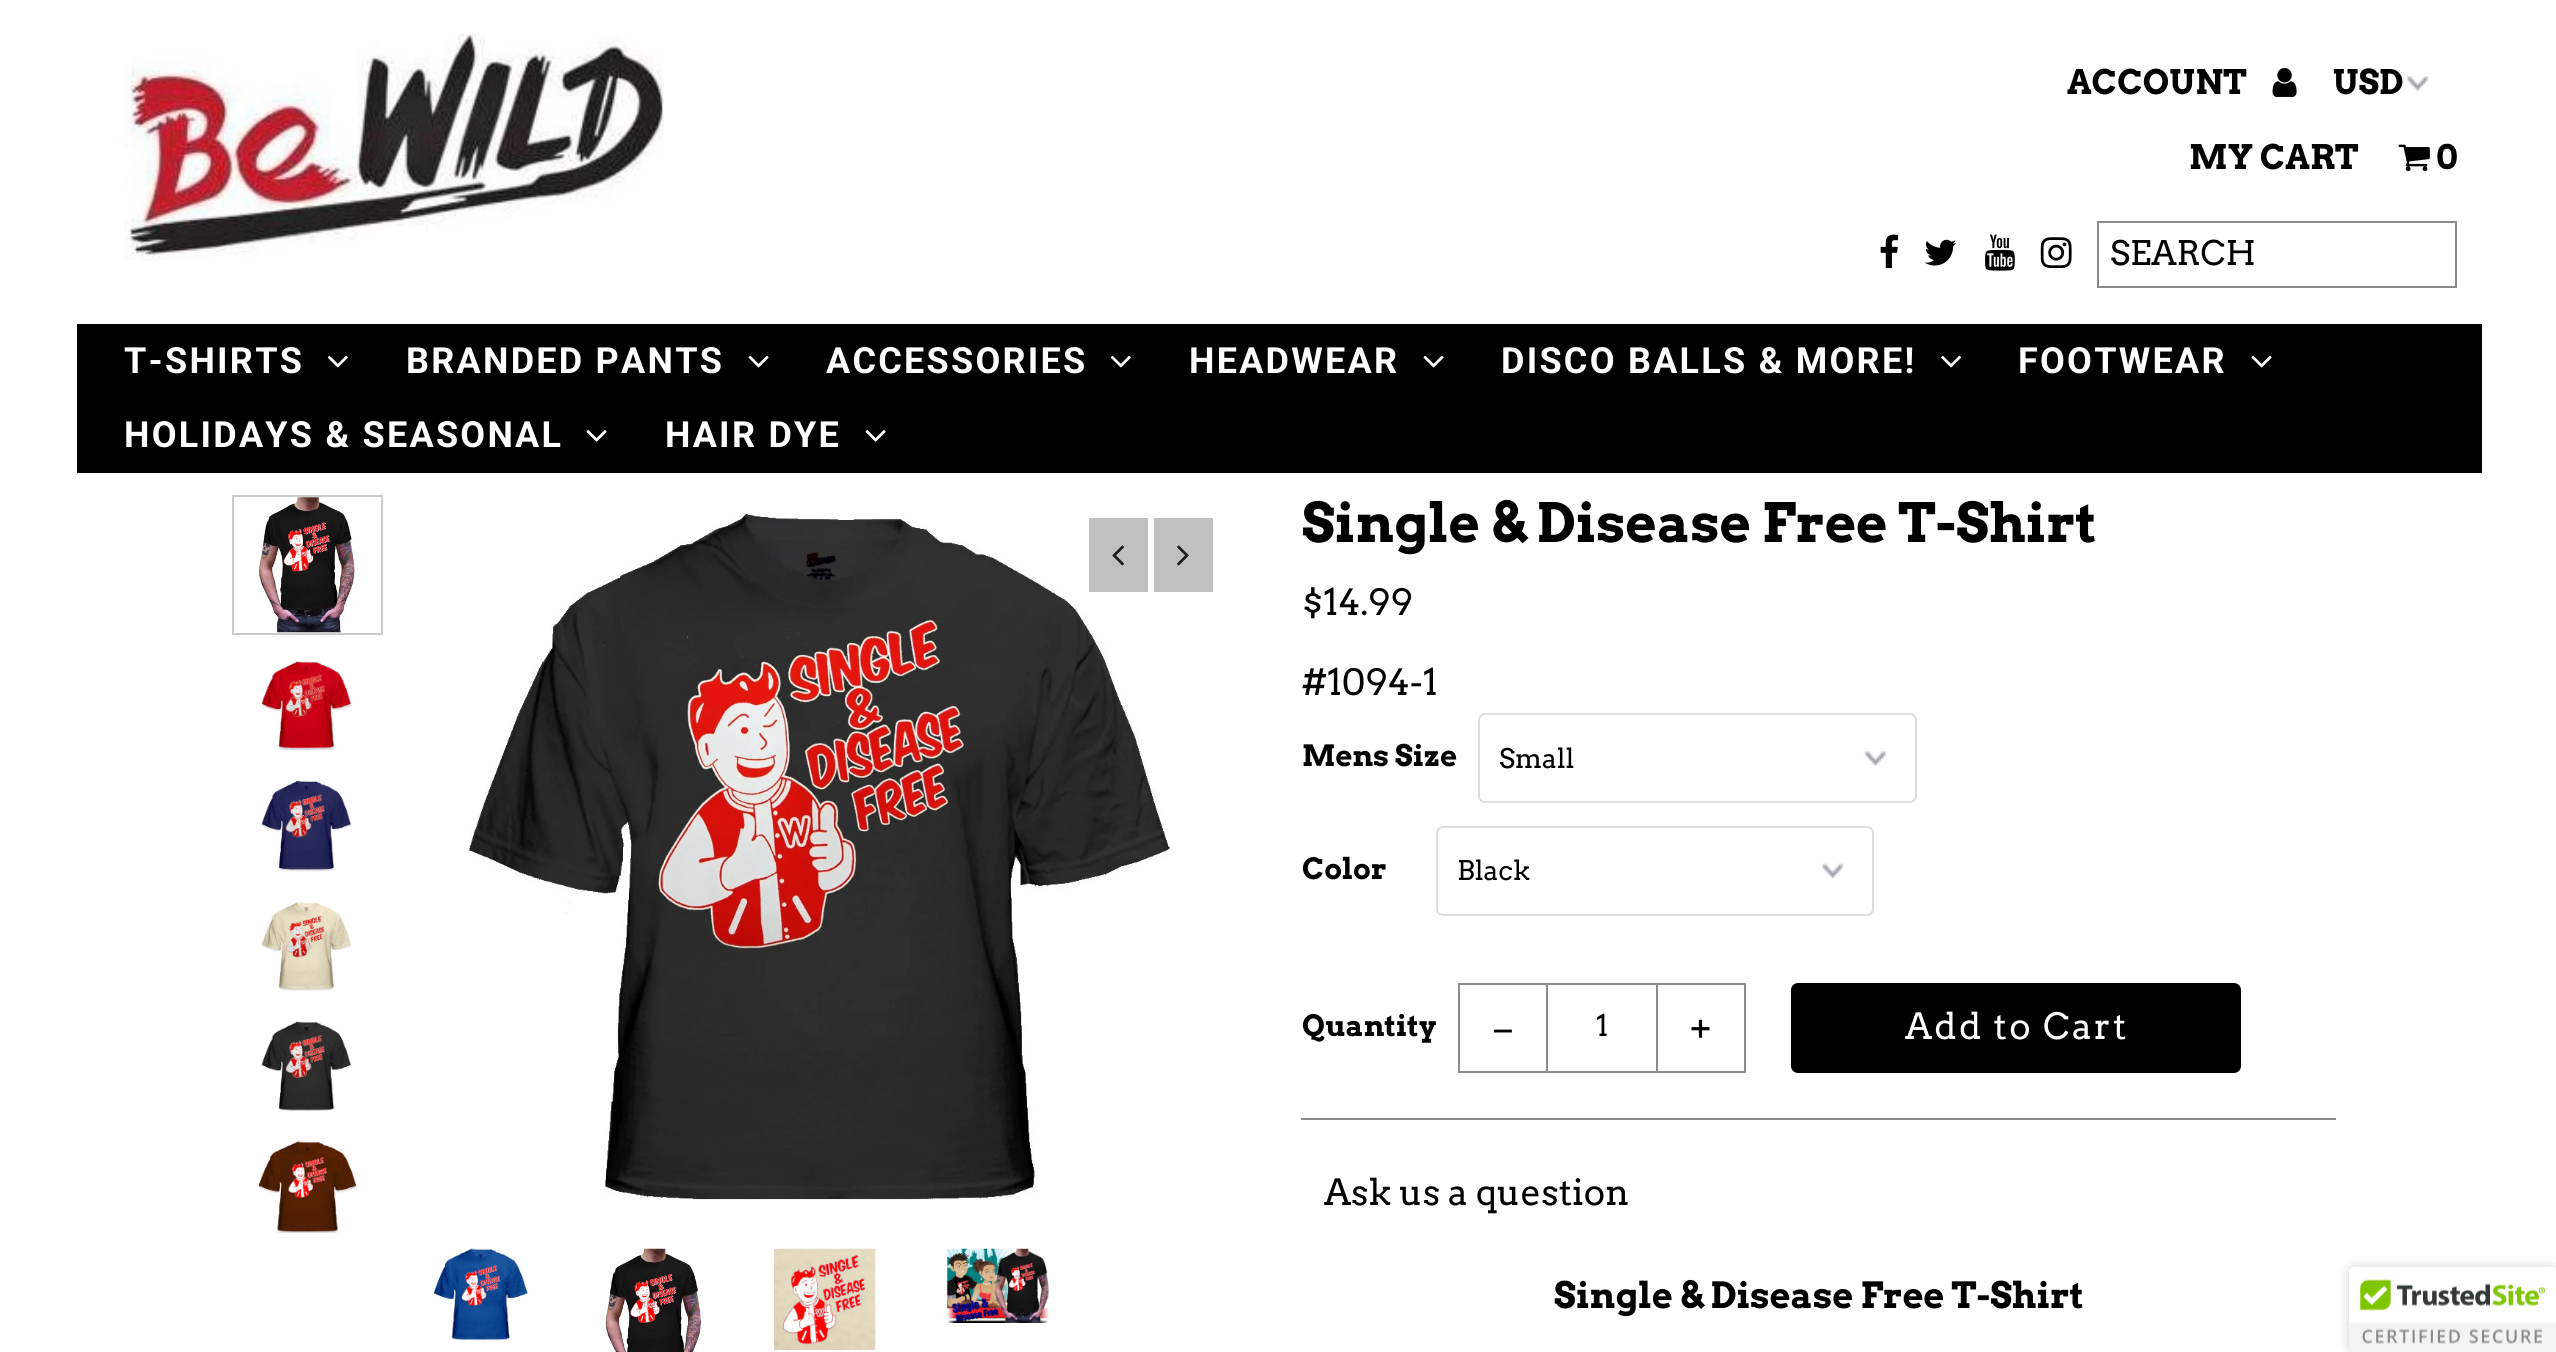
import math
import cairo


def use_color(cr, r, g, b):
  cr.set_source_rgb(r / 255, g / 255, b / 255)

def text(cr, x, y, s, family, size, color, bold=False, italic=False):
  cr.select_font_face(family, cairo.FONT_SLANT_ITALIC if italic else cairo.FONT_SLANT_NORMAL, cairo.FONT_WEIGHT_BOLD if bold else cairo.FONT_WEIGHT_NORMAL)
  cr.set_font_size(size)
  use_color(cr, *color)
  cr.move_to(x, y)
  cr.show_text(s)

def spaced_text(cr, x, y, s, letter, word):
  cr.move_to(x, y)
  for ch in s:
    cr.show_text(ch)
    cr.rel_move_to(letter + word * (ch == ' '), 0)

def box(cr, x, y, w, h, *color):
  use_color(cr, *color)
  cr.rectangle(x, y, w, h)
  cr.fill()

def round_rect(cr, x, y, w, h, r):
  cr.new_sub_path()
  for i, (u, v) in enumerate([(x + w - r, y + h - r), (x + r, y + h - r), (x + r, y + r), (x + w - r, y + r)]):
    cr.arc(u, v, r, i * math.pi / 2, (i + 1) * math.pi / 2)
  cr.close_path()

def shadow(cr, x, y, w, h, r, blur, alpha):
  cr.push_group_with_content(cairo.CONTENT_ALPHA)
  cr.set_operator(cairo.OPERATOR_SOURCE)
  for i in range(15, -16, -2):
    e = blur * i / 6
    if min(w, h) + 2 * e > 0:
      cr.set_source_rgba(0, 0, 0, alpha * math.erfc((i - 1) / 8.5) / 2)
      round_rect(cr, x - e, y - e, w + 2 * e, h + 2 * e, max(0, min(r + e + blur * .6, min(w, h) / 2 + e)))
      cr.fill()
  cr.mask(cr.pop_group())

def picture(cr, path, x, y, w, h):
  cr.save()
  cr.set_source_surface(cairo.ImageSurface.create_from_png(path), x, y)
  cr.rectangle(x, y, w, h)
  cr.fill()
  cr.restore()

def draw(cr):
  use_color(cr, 255, 255, 255)
  cr.paint()
  picture(cr, "img_01.png", 124, 33, 540, 228)
  picture(cr, "img_02.png", 2272, 68, 25, 29)
  picture(cr, "img_03.png", 2407, 76, 22, 15)
  picture(cr, "img_04.png", 2398, 144, 32, 28)
  picture(cr, "img_05.png", 1880, 234, 18, 35)
  picture(cr, "img_06.png", 1924, 239, 32, 27)
  picture(cr, "img_07.png", 1985, 234, 30, 37)
  picture(cr, "img_08.png", 2040, 237, 32, 32)
  cr.rectangle(2098, 222, 358, 65)
  use_color(cr, 139, 139, 139)
  cr.stroke()
  box(cr, 77, 324, 2405, 149, 0, 0, 0)
  picture(cr, "img_09.png", 327, 355, 21, 13)
  picture(cr, "img_10.png", 748, 355, 21, 13)
  picture(cr, "img_09.png", 1110, 355, 21, 13)
  picture(cr, "img_10.png", 1423, 355, 21, 13)
  picture(cr, "img_11.png", 1941, 355, 21, 13)
  picture(cr, "img_10.png", 2251, 355, 21, 13)
  picture(cr, "img_12.png", 586, 430, 21, 12)
  picture(cr, "img_12.png", 865, 430, 21, 12)
  cr.rectangle(233, 496, 149, 138)
  use_color(cr, 204, 204, 204)
  cr.stroke()
  picture(cr, "img_13.png", 257, 497, 99, 136)
  picture(cr, "img_14.png", 261, 661, 91, 90)
  picture(cr, "img_15.png", 261, 780, 90, 92)
  picture(cr, "img_16.png", 261, 902, 90, 89)
  picture(cr, "img_17.png", 261, 1021, 90, 90)
  picture(cr, "img_18.png", 258, 1141, 100, 92)
  picture(cr, "img_19.png", 433, 1248, 95, 93)
  picture(cr, "img_20.png", 603, 1248, 99, 104)
  picture(cr, "img_21.png", 774, 1248, 102, 102)
  picture(cr, "img_22.png", 947, 1248, 102, 75)
  picture(cr, "img_23.png", 469, 513, 702, 687)
  box(cr, 1089, 518, 59, 74, 192, 192, 192)
  picture(cr, "img_24.png", 1112, 545, 12, 21)
  box(cr, 1154, 518, 59, 74, 192, 192, 192)
  picture(cr, "img_25.png", 1177, 545, 12, 21)
  box(cr, 1301, 1118, 1035, 2, 139, 139, 139)
  picture(cr, "img_26.png", 1864, 751, 23, 15)
  round_rect(cr, 1479, 714, 437, 88, 6)
  use_color(cr, 221, 221, 221)
  cr.stroke()
  picture(cr, "img_27.png", 1822, 863, 22, 16)
  round_rect(cr, 1437, 827, 436, 88, 6)
  cr.stroke()
  cr.rectangle(1459, 984, 88, 88)
  use_color(cr, 139, 139, 139)
  cr.stroke()
  cr.rectangle(1547, 984, 110, 88)
  cr.stroke()
  cr.rectangle(1657, 984, 88, 88)
  cr.stroke()
  use_color(cr, 0, 0, 0)
  round_rect(cr, 1791, 983, 450, 90, 7)
  cr.fill()
  use_color(cr, 0, 0, 0)
  shadow(cr, 2349, 1267, 207, 85, 5, 5.5, 0.2)
  use_color(cr, 255, 255, 255)
  cr.new_path()
  cr.move_to(2354, 1267)
  cr.line_to(2556, 1267)
  cr.line_to(2556, 1352)
  cr.line_to(2349, 1352)
  cr.line_to(2349, 1272)
  cr.curve_to(2349, 1269, 2351, 1267, 2354, 1267)
  cr.close_path()
  cr.fill()
  picture(cr, "img_28.png", 2349, 1266, 207, 86)
  text(cr, 2067, 94, "ACCOUNT", "Arvo", 33.75, (0, 0, 0), bold=True)
  text(cr, 2333, 94, "USD", "Arvo", 33.75, (0, 0, 0), bold=True)
  text(cr, 2189, 169, "MY CART", "Arvo", 33.75, (0, 0, 0), bold=True)
  text(cr, 2436, 169, "0", "Arvo", 33.75, (0, 0, 0), bold=True)
  text(cr, 2110, 265, "SEARCH", "Arvo", 33.75, (0, 0, 0))
  cr.select_font_face("Roboto", cairo.FONT_SLANT_NORMAL, cairo.FONT_WEIGHT_BOLD)
  cr.set_font_size(36)
  use_color(cr, 255, 255, 255)
  spaced_text(cr, 124, 373, "T-SHIRTS", 2.25, 0)
  spaced_text(cr, 406, 373, "BRANDED PANTS", 2.25, 0)
  spaced_text(cr, 826, 373, "ACCESSORIES", 2.25, 0)
  spaced_text(cr, 1189, 373, "HEADWEAR", 2.25, 0)
  spaced_text(cr, 1501, 373, "DISCO BALLS & MORE!", 2.25, 0)
  spaced_text(cr, 2018, 373, "FOOTWEAR", 2.25, 0)
  spaced_text(cr, 124, 447, "HOLIDAYS & SEASONAL", 2.25, 0)
  spaced_text(cr, 665, 447, "HAIR DYE", 2.25, 0)
  text(cr, 1302, 542, "Single & Disease Free T-Shirt", "Arvo", 54, (0, 0, 0), bold=True)
  text(cr, 1302, 615, "$14.99", "Arvo", 36, (0, 0, 0))
  text(cr, 1302, 695, "#1094-1", "Arvo", 36, (0, 0, 0))
  text(cr, 1302, 766, "Mens Size", "Arvo", 29.25, (0, 0, 0), bold=True)
  text(cr, 1499, 768, "Small", "Arvo", 27, (0, 0, 0))
  text(cr, 1302, 879, "Color", "Arvo", 29.25, (0, 0, 0), bold=True)
  text(cr, 1457, 880, "Black", "Arvo", 27, (0, 0, 0))
  text(cr, 1302, 1036, "Quantity", "Arvo", 29.25, (0, 0, 0), bold=True)
  cr.select_font_face("Arvo")
  cr.set_font_size(36)
  spaced_text(cr, 1493, 1041, "−", 2.25, 0)
  text(cr, 1596, 1036, "1", "Arvo", 29.25, (0, 0, 0))
  cr.set_font_size(36)
  spaced_text(cr, 1689, 1041, "+", 2.25, 0)
  use_color(cr, 255, 255, 255)
  spaced_text(cr, 1905, 1039, "Add to Cart", 2.25, 0)
  text(cr, 1324, 1205, "Ask us a question", "Arvo", 36, (0, 0, 0))
  text(cr, 1554, 1308, "Single & Disease Free T-Shirt", "Arvo", 36, (0, 0, 0), bold=True)


surface = cairo.ImageSurface(cairo.FORMAT_RGB24, 2556, 1352)
cr = cairo.Context(surface)
options = cairo.FontOptions()
options.set_hint_metrics(cairo.HINT_METRICS_OFF)
options.set_hint_style(cairo.HINT_STYLE_NONE)
cr.set_font_options(options)
cr.set_miter_limit(4)
draw(cr)
surface.write_to_png("out.png")
